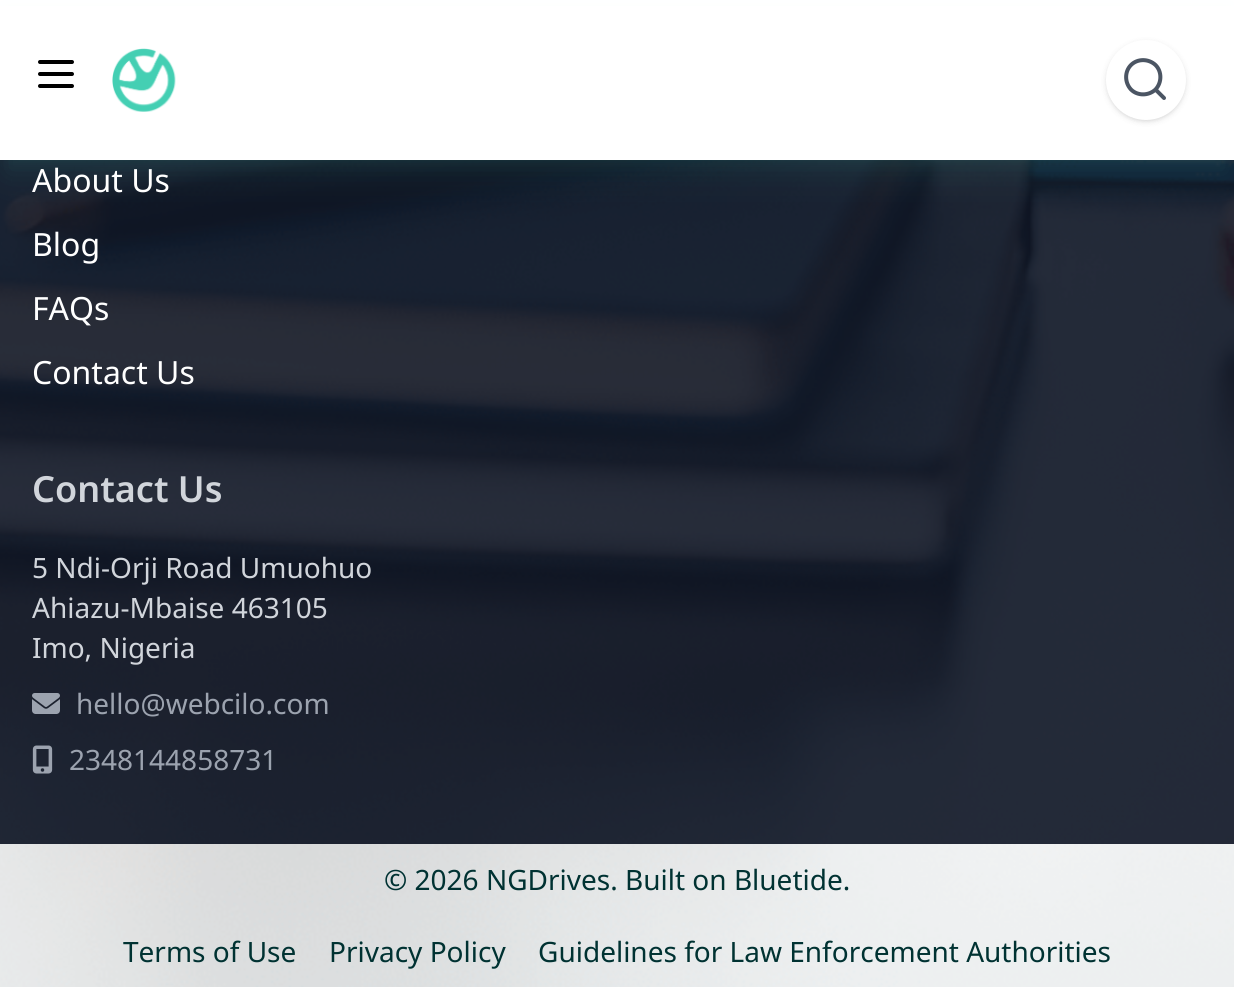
import math
import cairo


def use_color(cr, r, g, b):
  cr.set_source_rgb(r / 255, g / 255, b / 255)

def text(cr, x, y, s, family, size, color, bold=False, italic=False):
  cr.select_font_face(family, cairo.FONT_SLANT_ITALIC if italic else cairo.FONT_SLANT_NORMAL, cairo.FONT_WEIGHT_BOLD if bold else cairo.FONT_WEIGHT_NORMAL)
  cr.set_font_size(size)
  use_color(cr, *color)
  cr.move_to(x, y)
  cr.show_text(s)

def box(cr, x, y, w, h, *color):
  use_color(cr, *color)
  cr.rectangle(x, y, w, h)
  cr.fill()

def round_rect(cr, x, y, w, h, r):
  cr.new_sub_path()
  for i, (u, v) in enumerate([(x + w - r, y + h - r), (x + r, y + h - r), (x + r, y + r), (x + w - r, y + r)]):
    cr.arc(u, v, r, i * math.pi / 2, (i + 1) * math.pi / 2)
  cr.close_path()

def shadow(cr, x, y, w, h, r, blur, alpha):
  cr.push_group_with_content(cairo.CONTENT_ALPHA)
  cr.set_operator(cairo.OPERATOR_SOURCE)
  for i in range(15, -16, -2):
    e = blur * i / 6
    if min(w, h) + 2 * e > 0:
      cr.set_source_rgba(0, 0, 0, alpha * math.erfc((i - 1) / 8.5) / 2)
      round_rect(cr, x - e, y - e, w + 2 * e, h + 2 * e, max(0, min(r + e + blur * .6, min(w, h) / 2 + e)))
      cr.fill()
  cr.mask(cr.pop_group())

def picture(cr, path, x, y, w, h):
  cr.save()
  cr.set_source_surface(cairo.ImageSurface.create_from_png(path), x, y)
  cr.rectangle(x, y, w, h)
  cr.fill()
  cr.restore()

def draw(cr):
  use_color(cr, 255, 255, 255)
  cr.paint()
  picture(cr, "img_02.png", 0, 160, 1234, 827)
  cr.set_source_rgba(0.067, 0.094, 0.153, 0.9)
  cr.rectangle(0, 160, 1234, 684)
  cr.fill()
  use_color(cr, 68, 207, 179)
  shadow(cr, 8, 16, 1218, 144, 0, 6, 0.1)
  shadow(cr, 6, 26, 1222, 148, 0, 15, 0.1)
  box(cr, 0, 6, 1234, 154, 255, 255, 255)
  cr.new_path()
  cr.move_to(40, 62)
  cr.line_to(72, 62)
  cr.move_to(40, 74)
  cr.line_to(72, 74)
  cr.move_to(40, 86)
  cr.line_to(72, 86)
  use_color(cr, 0, 0, 0)
  cr.set_line_width(4)
  cr.set_line_cap(cairo.LINE_CAP_ROUND)
  cr.set_line_join(cairo.LINE_JOIN_ROUND)
  cr.stroke()
  picture(cr, "img_01.png", 112, 48, 64, 64)
  use_color(cr, 0, 0, 0)
  shadow(cr, 1108, 44, 76, 76, 38, 2, 0.1)
  shadow(cr, 1106, 42, 80, 80, 40, 3, 0.1)
  use_color(cr, 255, 255, 255)
  cr.arc(1146, 80, 40, 0, 2 * math.pi)
  cr.fill()
  cr.new_path()
  cr.move_to(1164, 98)
  cr.line_to(1155.5, 89.5)
  cr.move_to(1155.5, 89.5)
  cr.curve_to(1162, 82.5, 1162, 71.5, 1155.5, 65)
  cr.curve_to(1148.5, 58.5, 1137.5, 58.5, 1131, 65)
  cr.curve_to(1124.5, 71.5, 1124.5, 82.5, 1131, 89.5)
  cr.curve_to(1137.5, 96, 1148.5, 96, 1155.5, 89.5)
  cr.close_path()
  use_color(cr, 75, 85, 99)
  cr.stroke()
  picture(cr, "img_03.png", 32, 693, 28, 21)
  picture(cr, "img_04.png", 32, 745, 21, 29)
  cr.set_source_rgba(1, 1, 1, 0.7)
  cr.rectangle(0, 844, 1234, 143)
  cr.fill()
  text(cr, 32, 192, "About Us", "Noto Sans", 32, (255, 255, 255))
  text(cr, 32, 256, "Blog", "Noto Sans", 32, (255, 255, 255))
  text(cr, 32, 320, "FAQs", "Noto Sans", 32, (255, 255, 255))
  text(cr, 32, 384, "Contact Us", "Noto Sans", 32, (255, 255, 255))
  text(cr, 32, 502, "Contact Us", "Noto Sans SemiBold", 36, (209, 213, 219))
  text(cr, 32, 578, "5 Ndi-Orji Road Umuohuo", "Noto Sans", 28, (209, 213, 219))
  text(cr, 32, 618, "Ahiazu-Mbaise 463105", "Noto Sans", 28, (209, 213, 219))
  text(cr, 32, 658, "Imo, Nigeria", "Noto Sans", 28, (209, 213, 219))
  text(cr, 76, 714, "hello@webcilo.com", "Noto Sans", 28, (156, 163, 175))
  text(cr, 69, 770, "2348144858731", "Noto Sans", 28, (156, 163, 175))
  text(cr, 384, 890, "© 2026 NGDrives. Built on Bluetide.", "Noto Sans", 28, (0, 50, 50))
  text(cr, 123, 962, "Terms of Use", "Noto Sans", 28, (0, 50, 50))
  text(cr, 329, 962, "Privacy Policy", "Noto Sans", 28, (0, 50, 50))
  text(cr, 538, 962, "Guidelines for Law Enforcement Authorities", "Noto Sans", 28, (0, 50, 50))


surface = cairo.ImageSurface(cairo.FORMAT_RGB24, 1234, 987)
cr = cairo.Context(surface)
options = cairo.FontOptions()
options.set_hint_metrics(cairo.HINT_METRICS_OFF)
options.set_hint_style(cairo.HINT_STYLE_NONE)
cr.set_font_options(options)
cr.set_miter_limit(4)
draw(cr)
surface.write_to_png("out.png")
